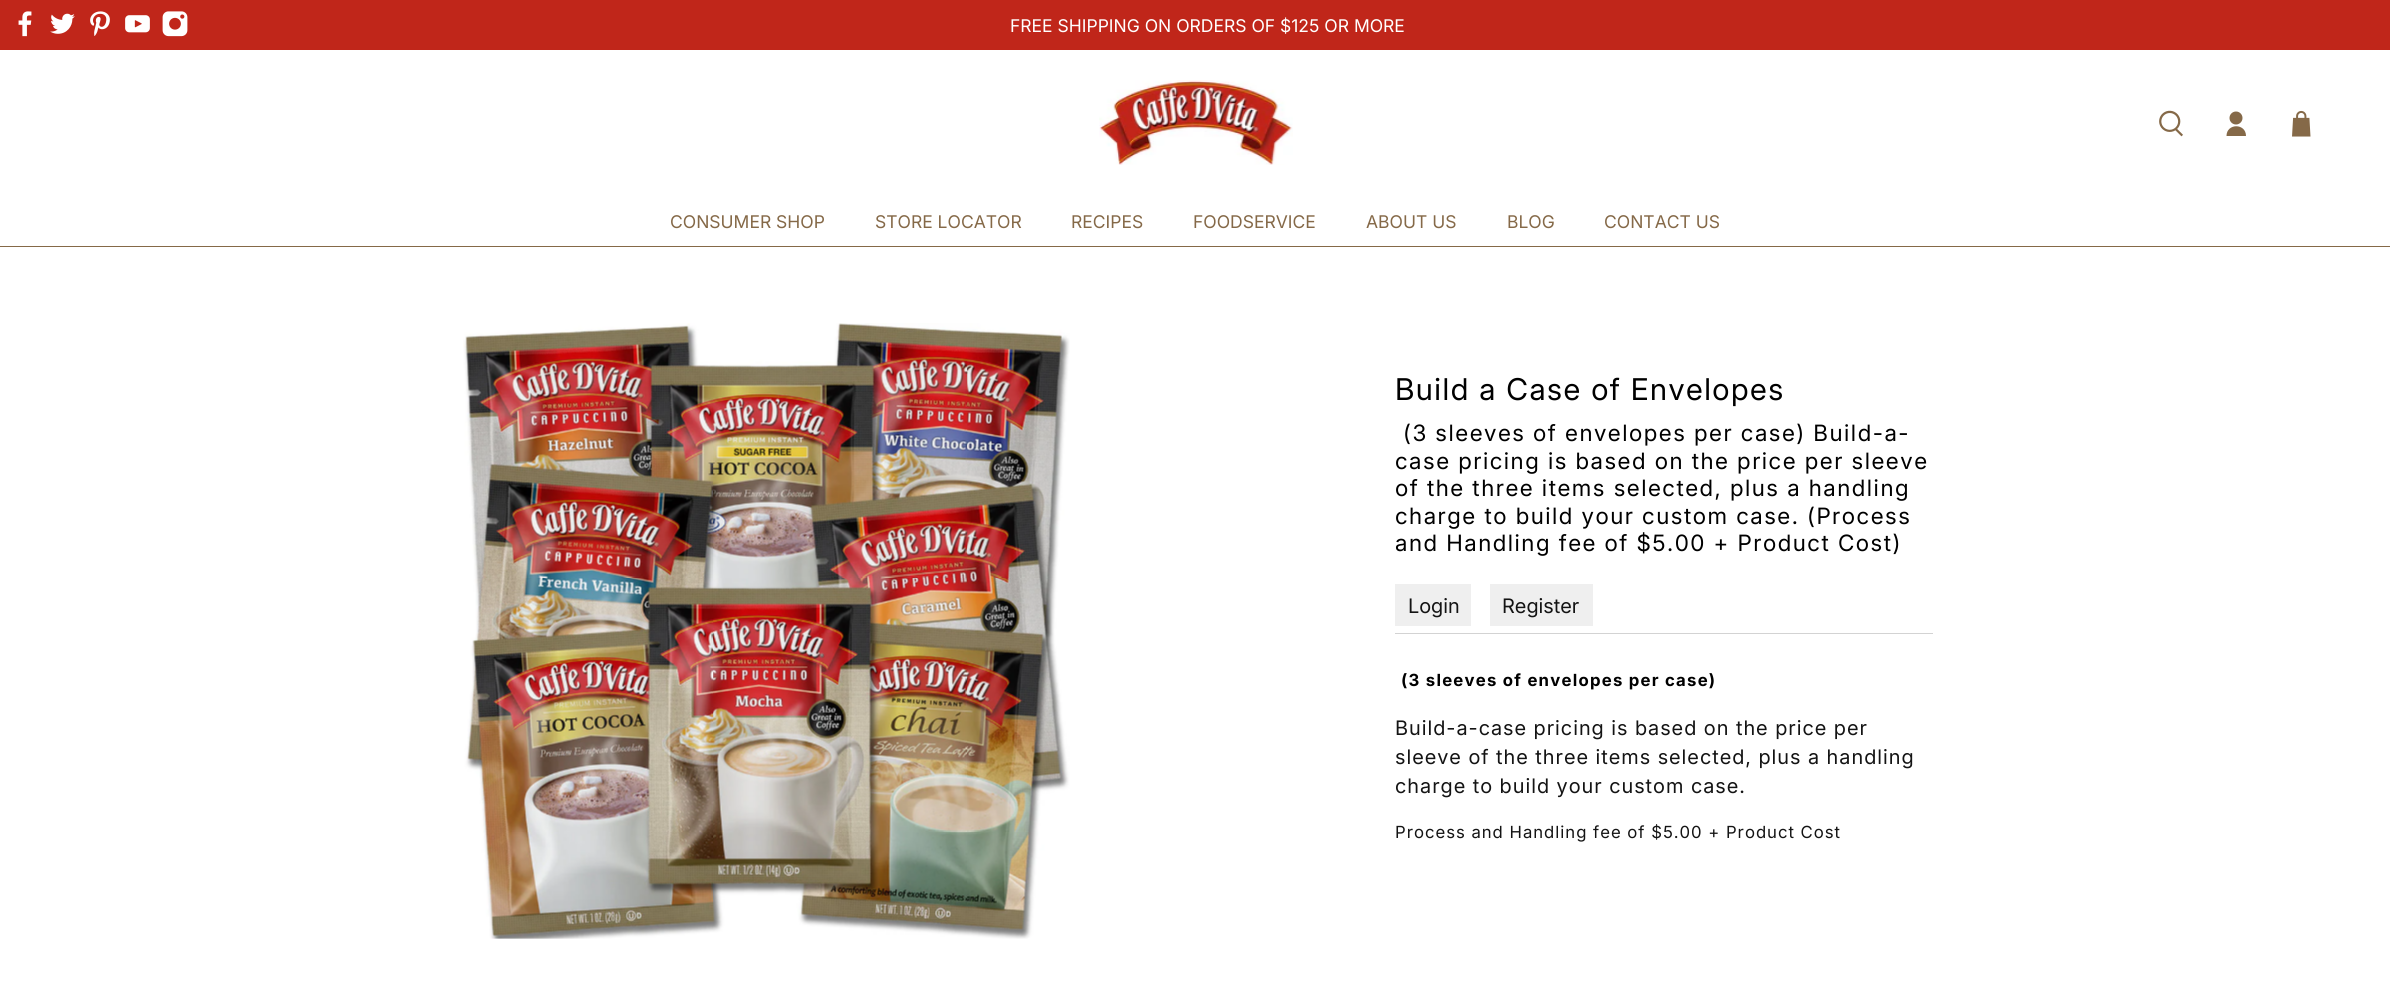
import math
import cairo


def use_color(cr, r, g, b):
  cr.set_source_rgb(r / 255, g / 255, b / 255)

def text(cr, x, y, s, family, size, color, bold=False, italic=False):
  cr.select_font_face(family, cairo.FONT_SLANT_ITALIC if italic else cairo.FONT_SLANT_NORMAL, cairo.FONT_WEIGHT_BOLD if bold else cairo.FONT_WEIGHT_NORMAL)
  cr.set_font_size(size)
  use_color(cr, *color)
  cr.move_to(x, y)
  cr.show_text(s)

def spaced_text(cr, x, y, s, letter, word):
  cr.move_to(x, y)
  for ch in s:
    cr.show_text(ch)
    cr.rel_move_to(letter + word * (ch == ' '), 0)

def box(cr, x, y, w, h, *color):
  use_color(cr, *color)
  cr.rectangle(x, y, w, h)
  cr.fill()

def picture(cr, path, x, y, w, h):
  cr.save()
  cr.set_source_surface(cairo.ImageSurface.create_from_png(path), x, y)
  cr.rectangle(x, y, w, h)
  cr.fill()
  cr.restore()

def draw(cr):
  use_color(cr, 255, 255, 255)
  cr.paint()
  box(cr, 0, 0, 2390, 50, 192, 38, 26)
  picture(cr, "img_01.png", 18, 11, 14, 26)
  picture(cr, "img_02.png", 50, 13, 25, 21)
  picture(cr, "img_03.png", 90, 11, 20, 25)
  picture(cr, "img_04.png", 125, 15, 25, 18)
  picture(cr, "img_05.png", 162, 11, 26, 26)
  box(cr, 0, 246, 2390, 1, 133, 105, 72)
  picture(cr, "img_06.png", 1099, 80, 194, 85)
  picture(cr, "img_07.png", 2159, 110, 24, 27)
  cr.arc(2236, 118, 6.5, 0, 2 * math.pi)
  cr.fill()
  cr.new_path()
  cr.move_to(2246, 136)
  cr.curve_to(2246, 123, 2226.5, 123, 2226.5, 136)
  cr.close_path()
  cr.fill()
  picture(cr, "img_08.png", 2292, 110, 19, 27)
  picture(cr, "img_09.png", 463, 323, 607, 616)
  box(cr, 1395, 584, 76, 42, 239, 239, 239)
  box(cr, 1490, 584, 103, 42, 239, 239, 239)
  box(cr, 1395, 633, 538, 1, 211, 211, 211)
  text(cr, 1010, 32, "FREE SHIPPING ON ORDERS OF $125 OR MORE", "Inter", 17.5, (255, 255, 255))
  text(cr, 670, 228, "CONSUMER SHOP", "Inter", 17.5, (133, 105, 72))
  text(cr, 875, 228, "STORE LOCATOR", "Inter", 17.5, (133, 105, 72))
  text(cr, 1071, 228, "RECIPES", "Inter", 17.5, (133, 105, 72))
  text(cr, 1193, 228, "FOODSERVICE", "Inter", 17.5, (133, 105, 72))
  text(cr, 1366, 228, "ABOUT US", "Inter", 17.5, (133, 105, 72))
  text(cr, 1507, 228, "BLOG", "Inter", 17.5, (133, 105, 72))
  text(cr, 1604, 228, "CONTACT US", "Inter", 17.5, (133, 105, 72))
  cr.select_font_face("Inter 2")
  cr.set_font_size(30)
  use_color(cr, 0, 0, 0)
  spaced_text(cr, 1395, 400, "Build a Case of Envelopes", 1.5, 0)
  cr.select_font_face("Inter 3")
  cr.set_font_size(22.5)
  spaced_text(cr, 1403, 441, "(3 sleeves of envelopes per case) Build-a-", 1.5, 0)
  spaced_text(cr, 1395, 469, "case pricing is based on the price per sleeve", 1.5, 0)
  spaced_text(cr, 1395, 496, "of the three items selected, plus a handling", 1.5, 0)
  spaced_text(cr, 1395, 524, "charge to build your custom case. (Process", 1.5, 0)
  spaced_text(cr, 1395, 551, "and Handling fee of $5.00 + Product Cost)", 1.5, 0)
  text(cr, 1408, 613, "Login", "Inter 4", 20, (20, 20, 20))
  text(cr, 1502, 613, "Register", "Inter 4", 20, (20, 20, 20))
  cr.select_font_face("Inter", cairo.FONT_SLANT_NORMAL, cairo.FONT_WEIGHT_BOLD)
  cr.set_font_size(16.7)
  use_color(cr, 0, 0, 0)
  spaced_text(cr, 1401, 686, "(3 sleeves of envelopes per case)", 1.25, 0)
  cr.select_font_face("Inter 4")
  cr.set_font_size(20)
  use_color(cr, 20, 20, 20)
  spaced_text(cr, 1395, 735, "Build-a-case pricing is based on the price per", 0.98, 0)
  spaced_text(cr, 1395, 764, "sleeve of the three items selected, plus a handling", 0.98, 0)
  spaced_text(cr, 1395, 793, "charge to build your custom case.", 0.98, 0)
  cr.select_font_face("Inter")
  cr.set_font_size(16.7)
  spaced_text(cr, 1395, 838, "Process and Handling fee of $5.00 + Product Cost", 0.98, 0)


surface = cairo.ImageSurface(cairo.FORMAT_RGB24, 2390, 982)
cr = cairo.Context(surface)
options = cairo.FontOptions()
options.set_hint_metrics(cairo.HINT_METRICS_OFF)
options.set_hint_style(cairo.HINT_STYLE_NONE)
cr.set_font_options(options)
cr.set_miter_limit(4)
draw(cr)
surface.write_to_png("out.png")
